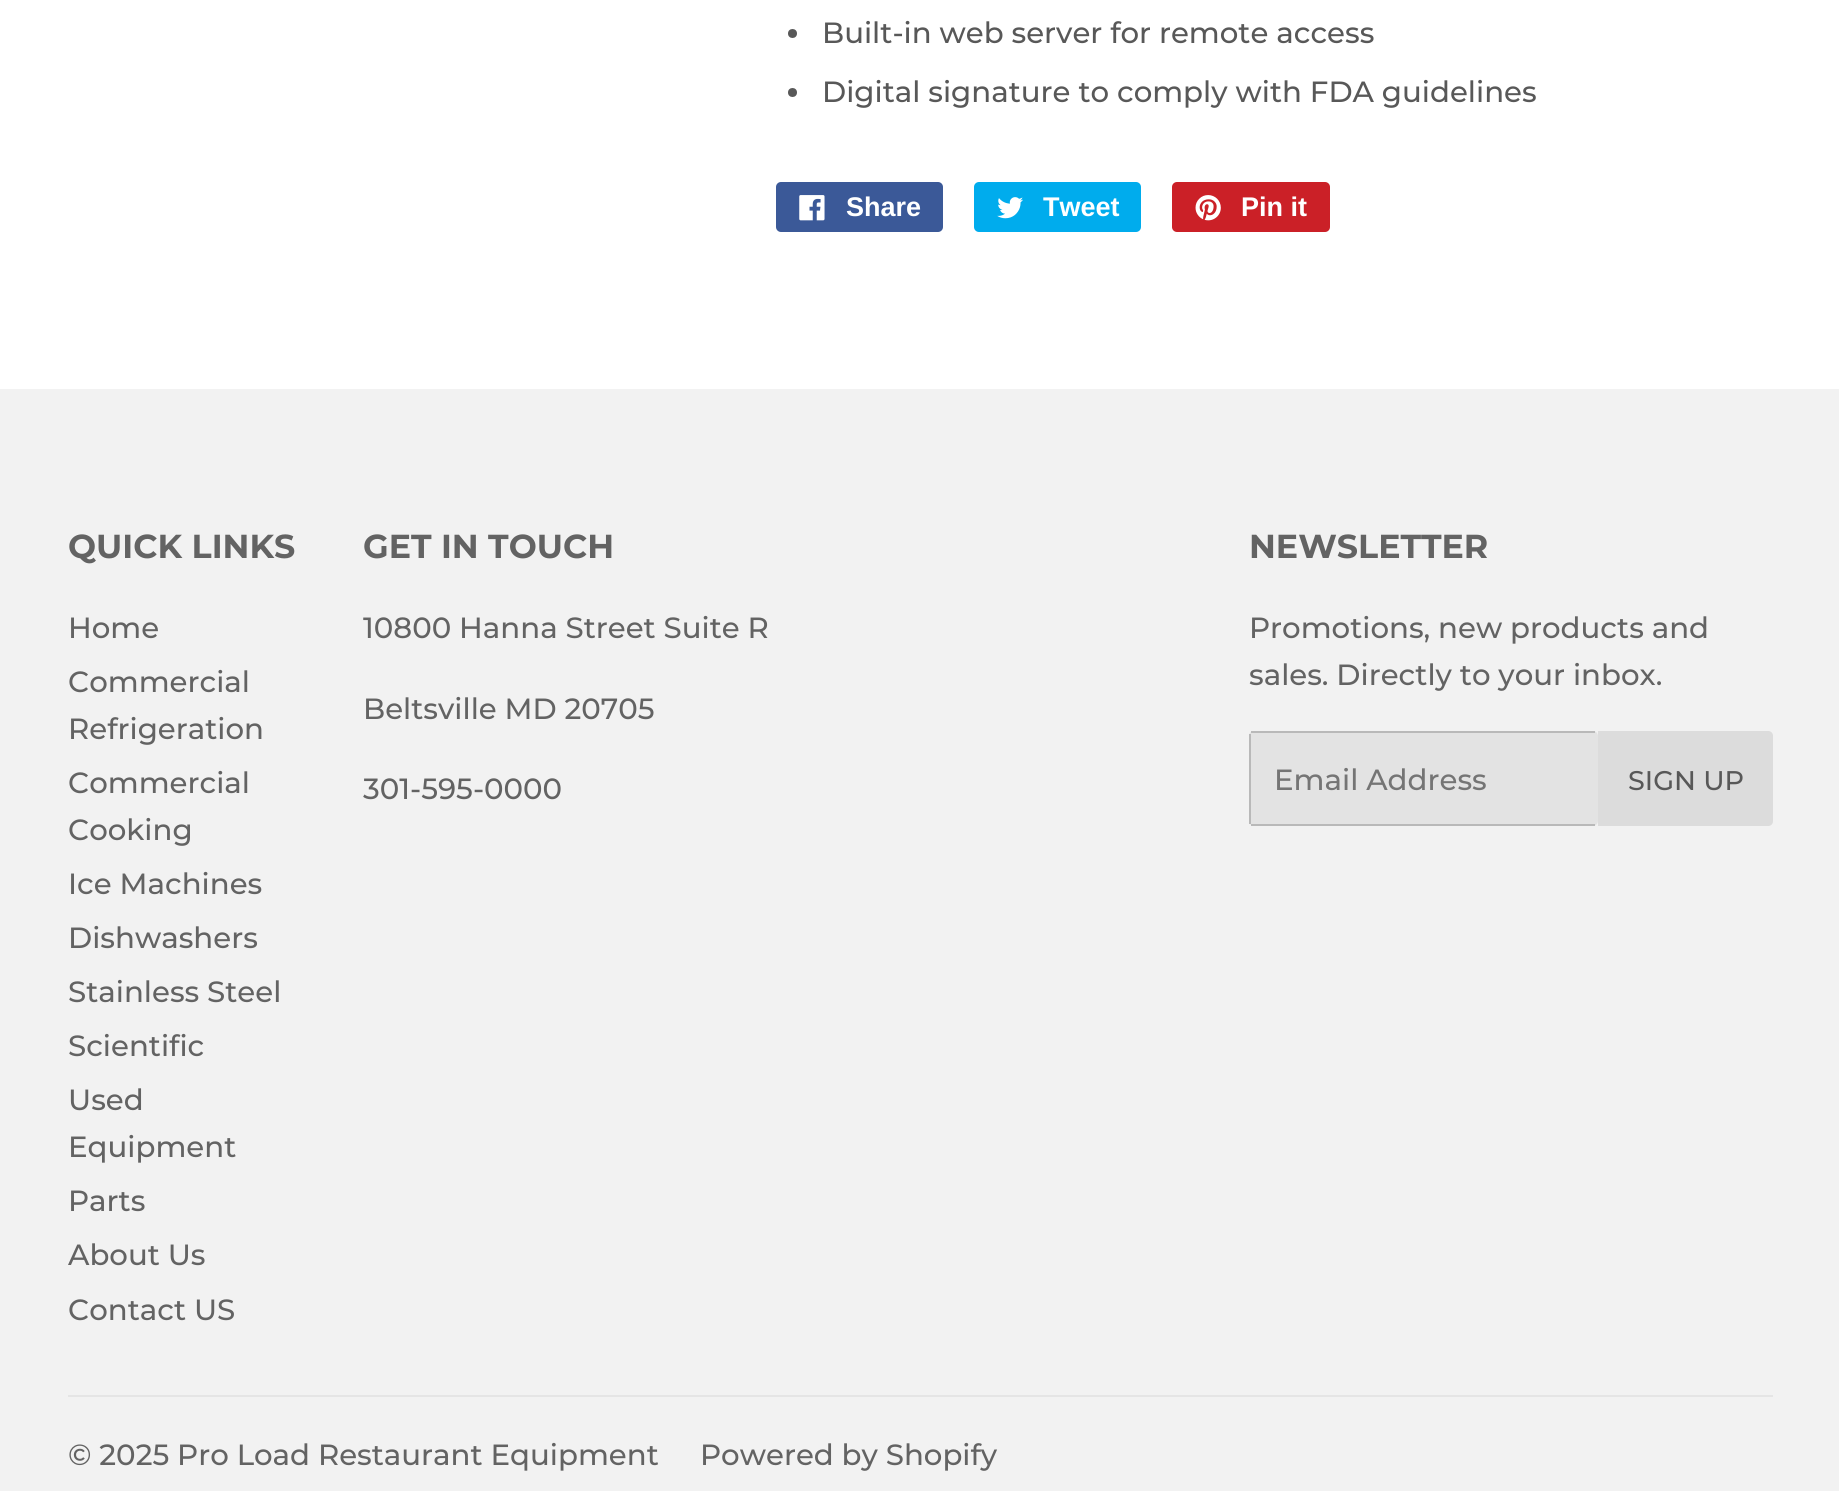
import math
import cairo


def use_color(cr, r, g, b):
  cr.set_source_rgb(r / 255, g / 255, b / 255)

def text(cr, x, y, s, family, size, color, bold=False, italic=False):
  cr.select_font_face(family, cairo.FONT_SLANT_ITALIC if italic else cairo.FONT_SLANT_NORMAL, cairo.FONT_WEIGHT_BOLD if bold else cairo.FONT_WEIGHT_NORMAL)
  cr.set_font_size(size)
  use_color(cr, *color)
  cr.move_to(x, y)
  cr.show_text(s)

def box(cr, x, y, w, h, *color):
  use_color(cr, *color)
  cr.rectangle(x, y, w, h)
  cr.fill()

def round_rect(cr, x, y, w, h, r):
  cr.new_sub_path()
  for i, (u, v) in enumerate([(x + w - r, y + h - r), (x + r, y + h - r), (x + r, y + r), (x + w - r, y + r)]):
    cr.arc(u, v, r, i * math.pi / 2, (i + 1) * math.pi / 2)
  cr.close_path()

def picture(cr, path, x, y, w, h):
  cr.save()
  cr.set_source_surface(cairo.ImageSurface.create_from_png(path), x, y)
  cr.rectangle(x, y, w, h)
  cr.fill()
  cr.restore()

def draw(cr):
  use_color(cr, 255, 255, 255)
  cr.paint()
  use_color(cr, 88, 88, 88)
  cr.arc(792.5, 33.5, 4.5, 0, 2 * math.pi)
  cr.fill()
  cr.arc(792.5, 92.5, 4.5, 0, 2 * math.pi)
  cr.fill()
  use_color(cr, 59, 89, 152)
  round_rect(cr, 776, 182, 167, 50, 5)
  cr.fill()
  picture(cr, "img_01.png", 799, 195, 26, 26)
  use_color(cr, 0, 172, 237)
  round_rect(cr, 974, 182, 167, 50, 5)
  cr.fill()
  picture(cr, "img_02.png", 997, 197, 26, 22)
  use_color(cr, 203, 32, 39)
  round_rect(cr, 1172, 182, 158, 50, 5)
  cr.fill()
  picture(cr, "img_03.png", 1195, 195, 26, 26)
  box(cr, 0, 389, 1839, 1102, 242, 242, 242)
  use_color(cr, 227, 227, 227)
  round_rect(cr, 1249, 731, 349, 95, 5)
  cr.fill()
  box(cr, 1251, 731, 344, 2, 185, 185, 185)
  box(cr, 1251, 824, 344, 2, 185, 185, 185)
  box(cr, 1249, 734, 2, 90, 185, 185, 185)
  use_color(cr, 220, 220, 220)
  cr.new_path()
  cr.move_to(1598, 731)
  cr.line_to(1768, 731)
  cr.curve_to(1771, 731, 1773, 733, 1773, 736)
  cr.line_to(1773, 821)
  cr.curve_to(1773, 824, 1771, 826, 1768, 826)
  cr.line_to(1598, 826)
  cr.close_path()
  cr.fill()
  box(cr, 68, 1395, 1705, 2, 229, 229, 229)
  text(cr, 822, 43, "Built-in web server for remote access", "Montserrat Medium", 29.25, (88, 88, 88))
  text(cr, 822, 102, "Digital signature to comply with FDA guidelines", "Montserrat Medium", 29.25, (88, 88, 88))
  text(cr, 846, 216, "Share", "Liberation Sans", 27, (255, 255, 255), bold=True)
  text(cr, 1043, 216, "Tweet", "Liberation Sans", 27, (255, 255, 255), bold=True)
  text(cr, 1241, 216, "Pin it", "Liberation Sans", 27, (255, 255, 255), bold=True)
  text(cr, 68, 558, "QUICK LINKS", "Montserrat", 33.25, (99, 99, 99), bold=True)
  text(cr, 68, 638, "Home", "Montserrat Medium", 29.25, (99, 99, 99))
  text(cr, 68, 692, "Commercial", "Montserrat Medium", 29.25, (99, 99, 99))
  text(cr, 68, 739, "Refrigeration", "Montserrat Medium", 29.25, (99, 99, 99))
  text(cr, 68, 793, "Commercial", "Montserrat Medium", 29.25, (99, 99, 99))
  text(cr, 68, 840, "Cooking", "Montserrat Medium", 29.25, (99, 99, 99))
  text(cr, 68, 894, "Ice Machines", "Montserrat Medium", 29.25, (99, 99, 99))
  text(cr, 68, 948, "Dishwashers", "Montserrat Medium", 29.25, (99, 99, 99))
  text(cr, 68, 1002, "Stainless Steel", "Montserrat Medium", 29.25, (99, 99, 99))
  text(cr, 68, 1056, "Scientific", "Montserrat Medium", 29.25, (99, 99, 99))
  text(cr, 68, 1110, "Used", "Montserrat Medium", 29.25, (99, 99, 99))
  text(cr, 68, 1157, "Equipment", "Montserrat Medium", 29.25, (99, 99, 99))
  text(cr, 68, 1211, "Parts", "Montserrat Medium", 29.25, (99, 99, 99))
  text(cr, 68, 1265, "About Us", "Montserrat Medium", 29.25, (99, 99, 99))
  text(cr, 68, 1320, "Contact US", "Montserrat Medium", 29.25, (99, 99, 99))
  text(cr, 363, 558, "GET IN TOUCH", "Montserrat", 33.25, (99, 99, 99), bold=True)
  text(cr, 363, 638, "10800 Hanna Street Suite R", "Montserrat Medium", 29.25, (99, 99, 99))
  text(cr, 363, 719, "Beltsville MD 20705", "Montserrat Medium", 29.25, (99, 99, 99))
  text(cr, 363, 799, "301-595-0000", "Montserrat Medium", 29.25, (99, 99, 99))
  text(cr, 1249, 558, "NEWSLETTER", "Montserrat", 33.25, (99, 99, 99), bold=True)
  text(cr, 1249, 638, "Promotions, new products and", "Montserrat Medium", 29.25, (99, 99, 99))
  text(cr, 1249, 685, "sales. Directly to your inbox.", "Montserrat Medium", 29.25, (99, 99, 99))
  text(cr, 1274, 790, "Email Address", "Montserrat Medium", 29.25, (117, 117, 117))
  text(cr, 1628, 790, "SIGN UP", "Montserrat Medium", 27, (88, 88, 88))
  text(cr, 68, 1465, "© 2025 Pro Load Restaurant Equipment", "Montserrat Medium", 29.25, (99, 99, 99))
  text(cr, 700, 1465, "Powered by Shopify", "Montserrat Medium", 29.25, (99, 99, 99))


surface = cairo.ImageSurface(cairo.FORMAT_RGB24, 1839, 1491)
cr = cairo.Context(surface)
options = cairo.FontOptions()
options.set_hint_metrics(cairo.HINT_METRICS_OFF)
options.set_hint_style(cairo.HINT_STYLE_NONE)
cr.set_font_options(options)
cr.set_miter_limit(4)
draw(cr)
surface.write_to_png("out.png")
